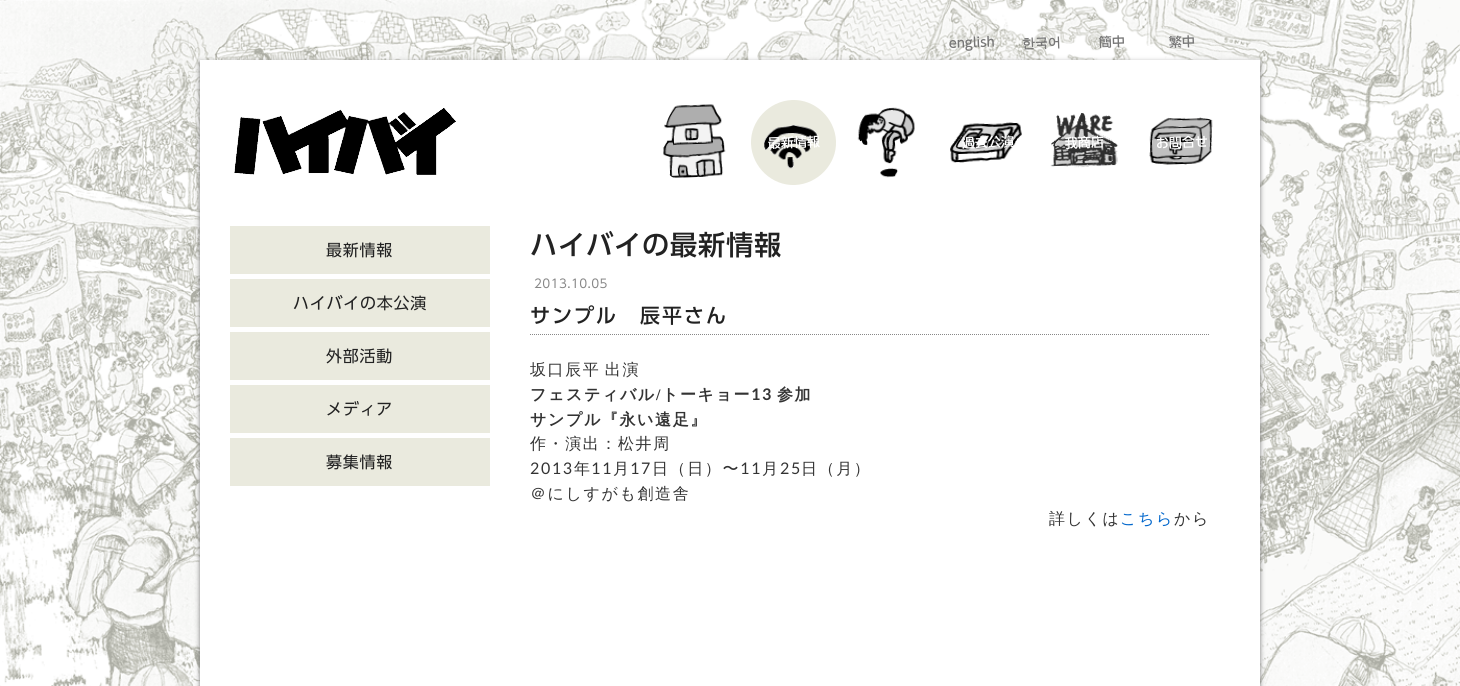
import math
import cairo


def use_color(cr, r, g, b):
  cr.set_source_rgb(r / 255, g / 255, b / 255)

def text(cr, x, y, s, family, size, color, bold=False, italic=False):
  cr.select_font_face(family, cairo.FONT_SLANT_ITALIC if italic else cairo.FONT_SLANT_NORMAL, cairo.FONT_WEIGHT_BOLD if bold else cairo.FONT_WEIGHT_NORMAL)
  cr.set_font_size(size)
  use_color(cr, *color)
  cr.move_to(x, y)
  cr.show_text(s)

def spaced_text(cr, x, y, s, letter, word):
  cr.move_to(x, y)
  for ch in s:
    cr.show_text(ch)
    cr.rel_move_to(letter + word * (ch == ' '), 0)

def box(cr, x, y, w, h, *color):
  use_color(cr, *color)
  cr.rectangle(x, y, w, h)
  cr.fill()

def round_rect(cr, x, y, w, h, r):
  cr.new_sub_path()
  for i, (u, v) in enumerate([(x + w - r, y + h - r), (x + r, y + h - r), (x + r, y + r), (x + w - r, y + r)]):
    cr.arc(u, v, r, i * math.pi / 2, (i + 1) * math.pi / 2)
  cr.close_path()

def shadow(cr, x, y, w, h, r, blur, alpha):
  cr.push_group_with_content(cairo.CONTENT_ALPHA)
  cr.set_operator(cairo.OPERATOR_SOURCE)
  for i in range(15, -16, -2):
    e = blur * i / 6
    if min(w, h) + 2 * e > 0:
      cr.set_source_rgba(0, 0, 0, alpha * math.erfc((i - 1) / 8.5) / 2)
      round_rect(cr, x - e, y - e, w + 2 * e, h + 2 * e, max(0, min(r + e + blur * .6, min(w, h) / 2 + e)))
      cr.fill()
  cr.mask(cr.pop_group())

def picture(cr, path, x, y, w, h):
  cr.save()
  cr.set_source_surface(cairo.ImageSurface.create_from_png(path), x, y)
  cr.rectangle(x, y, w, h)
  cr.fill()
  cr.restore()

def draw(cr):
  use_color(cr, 255, 255, 255)
  cr.paint()
  picture(cr, "img_01.png", 0, 0, 1460, 686)
  use_color(cr, 119, 119, 119)
  shadow(cr, 200, 62, 1060, 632, 0, 2.5, 1)
  box(cr, 200, 60, 1060, 626, 255, 255, 255)
  picture(cr, "img_02.png", 234, 108, 222, 67)
  picture(cr, "img_03.png", 663, 104, 63, 74)
  use_color(cr, 234, 234, 222)
  cr.new_path()
  cr.move_to(792, 100)
  cr.curve_to(815, 99, 835, 118, 836, 141)
  cr.curve_to(837, 164, 818, 184, 795, 185)
  cr.curve_to(772, 186, 752, 167, 751, 144)
  cr.curve_to(750, 121, 769, 101, 792, 100)
  cr.close_path()
  cr.fill()
  picture(cr, "img_04.png", 764, 125, 54, 44)
  picture(cr, "img_05.png", 857, 107, 58, 71)
  picture(cr, "img_06.png", 950, 122, 72, 41)
  picture(cr, "img_07.png", 1050, 113, 69, 55)
  picture(cr, "img_08.png", 1149, 117, 64, 48)
  box(cr, 230, 226, 260, 48, 234, 234, 222)
  box(cr, 230, 279, 260, 48, 234, 234, 222)
  box(cr, 230, 332, 260, 48, 234, 234, 222)
  box(cr, 230, 385, 260, 48, 234, 234, 222)
  box(cr, 230, 438, 260, 48, 234, 234, 222)
  cr.new_path()
  cr.move_to(530, 334.5)
  cr.line_to(1210, 334.5)
  use_color(cr, 136, 136, 136)
  cr.set_line_width(1)
  cr.set_dash([1, 1])
  cr.stroke()
  cr.save()
  cr.translate(949, 48)
  cr.rotate(-2 * math.pi / 180)
  text(cr, 0, 0, "english", "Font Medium", 13, (119, 119, 119))
  cr.restore()
  cr.save()
  cr.translate(1022, 48)
  cr.rotate(-2 * math.pi / 180)
  text(cr, 0, 0, "한국어", "WenQuanYi Zen Hei", 13, (119, 119, 119), bold=True)
  cr.restore()
  cr.save()
  cr.translate(1099, 47)
  cr.rotate(-2 * math.pi / 180)
  text(cr, 0, 0, "簡中", "Font Medium", 13, (119, 119, 119))
  cr.restore()
  cr.save()
  cr.translate(1169, 47)
  cr.rotate(-2 * math.pi / 180)
  text(cr, 0, 0, "繁中", "Font Medium", 13, (119, 119, 119))
  cr.restore()
  cr.save()
  cr.translate(768, 148)
  cr.rotate(-2 * math.pi / 180)
  text(cr, 0, 0, "最新情報", "Font Medium", 13, (255, 255, 255))
  cr.restore()
  cr.save()
  cr.translate(962, 148)
  cr.rotate(-2 * math.pi / 180)
  text(cr, 0, 0, "過去公演", "Font Medium", 13, (255, 255, 255))
  cr.restore()
  cr.save()
  cr.translate(1065, 148)
  cr.rotate(-2 * math.pi / 180)
  text(cr, 0, 0, "我商店", "Font Medium", 13, (255, 255, 255))
  cr.restore()
  cr.save()
  cr.translate(1156, 148)
  cr.rotate(-2 * math.pi / 180)
  text(cr, 0, 0, "お問合せ", "Font Medium", 13, (255, 255, 255))
  cr.restore()
  cr.select_font_face("Font")
  cr.set_font_size(16)
  use_color(cr, 34, 34, 34)
  spaced_text(cr, 326, 256, "最新情報", 0.75, 0)
  spaced_text(cr, 293, 309, "ハイバイの本公演", 0.75, 0)
  spaced_text(cr, 326, 362, "外部活動", 0.75, 0)
  spaced_text(cr, 326, 415, "メディア", 0.75, 0)
  spaced_text(cr, 326, 468, "募集情報", 0.75, 0)
  cr.select_font_face("Font Medium")
  cr.set_font_size(27.25)
  spaced_text(cr, 530, 255, "ハイバイの最新情報", 0.75, 0)
  cr.select_font_face("Font")
  cr.set_font_size(12)
  use_color(cr, 136, 136, 136)
  spaced_text(cr, 534, 288, "2013.10.05", 0.4, 0)
  cr.select_font_face("Font Medium")
  cr.set_font_size(20)
  use_color(cr, 34, 34, 34)
  spaced_text(cr, 530, 323, "サンプル　辰平さん", 2, 0)
  cr.select_font_face("WenQuanYi Zen Hei Medium")
  cr.set_font_size(16)
  use_color(cr, 51, 51, 51)
  spaced_text(cr, 530, 375, "坂口辰平 出演", 1.6, -2)
  cr.select_font_face("WenQuanYi Zen Hei", cairo.FONT_SLANT_NORMAL, cairo.FONT_WEIGHT_BOLD)
  spaced_text(cr, 530, 400, "フェスティバル", 1.6, 0)
  cr.select_font_face("Liberation Serif", cairo.FONT_SLANT_NORMAL, cairo.FONT_WEIGHT_BOLD)
  spaced_text(cr, 656, 400, "/", 1.6, 0)
  cr.select_font_face("WenQuanYi Zen Hei", cairo.FONT_SLANT_NORMAL, cairo.FONT_WEIGHT_BOLD)
  spaced_text(cr, 662, 400, "トーキョー", 1.6, 0)
  cr.select_font_face("Lato", cairo.FONT_SLANT_NORMAL, cairo.FONT_WEIGHT_BOLD)
  spaced_text(cr, 751, 400, "13", 1.6, 0)
  cr.select_font_face("WenQuanYi Zen Hei", cairo.FONT_SLANT_NORMAL, cairo.FONT_WEIGHT_BOLD)
  spaced_text(cr, 777, 400, "参加", 1.6, 0)
  spaced_text(cr, 530, 425, "サンプル『永い遠足』", 1.6, 0)
  cr.select_font_face("WenQuanYi Zen Hei Medium")
  spaced_text(cr, 530, 449, "作・演出：松井周", 1.6, 0)
  cr.select_font_face("Lato")
  spaced_text(cr, 530, 474, "2013", 1.6, 0)
  cr.select_font_face("WenQuanYi Zen Hei Medium")
  spaced_text(cr, 574, 474, "年", 1.6, 0)
  cr.select_font_face("Lato")
  spaced_text(cr, 591, 474, "11", 1.6, 0)
  cr.select_font_face("WenQuanYi Zen Hei Medium")
  spaced_text(cr, 613, 474, "月", 1.6, 0)
  cr.select_font_face("Lato")
  spaced_text(cr, 630, 474, "17", 1.6, 0)
  cr.select_font_face("WenQuanYi Zen Hei Medium")
  spaced_text(cr, 652, 474, "日（日）〜", 1.6, 0)
  cr.select_font_face("Lato")
  spaced_text(cr, 740, 474, "11", 1.6, 0)
  cr.select_font_face("WenQuanYi Zen Hei Medium")
  spaced_text(cr, 762, 474, "月", 1.6, 0)
  cr.select_font_face("Lato")
  spaced_text(cr, 780, 474, "25", 1.6, 0)
  cr.select_font_face("WenQuanYi Zen Hei Medium")
  spaced_text(cr, 801, 474, "日（月）", 1.6, 0)
  spaced_text(cr, 530, 499, "＠にしすがも創造舎", 1.6, 0)
  spaced_text(cr, 1049, 524, "詳しくは", 1.6, 0)
  use_color(cr, 0, 102, 204)
  spaced_text(cr, 1120, 524, "こちら", 1.6, 0)
  use_color(cr, 51, 51, 51)
  spaced_text(cr, 1174, 524, "から", 1.6, 0)


surface = cairo.ImageSurface(cairo.FORMAT_RGB24, 1460, 686)
cr = cairo.Context(surface)
options = cairo.FontOptions()
options.set_hint_metrics(cairo.HINT_METRICS_OFF)
options.set_hint_style(cairo.HINT_STYLE_NONE)
cr.set_font_options(options)
cr.set_miter_limit(4)
draw(cr)
surface.write_to_png("out.png")
